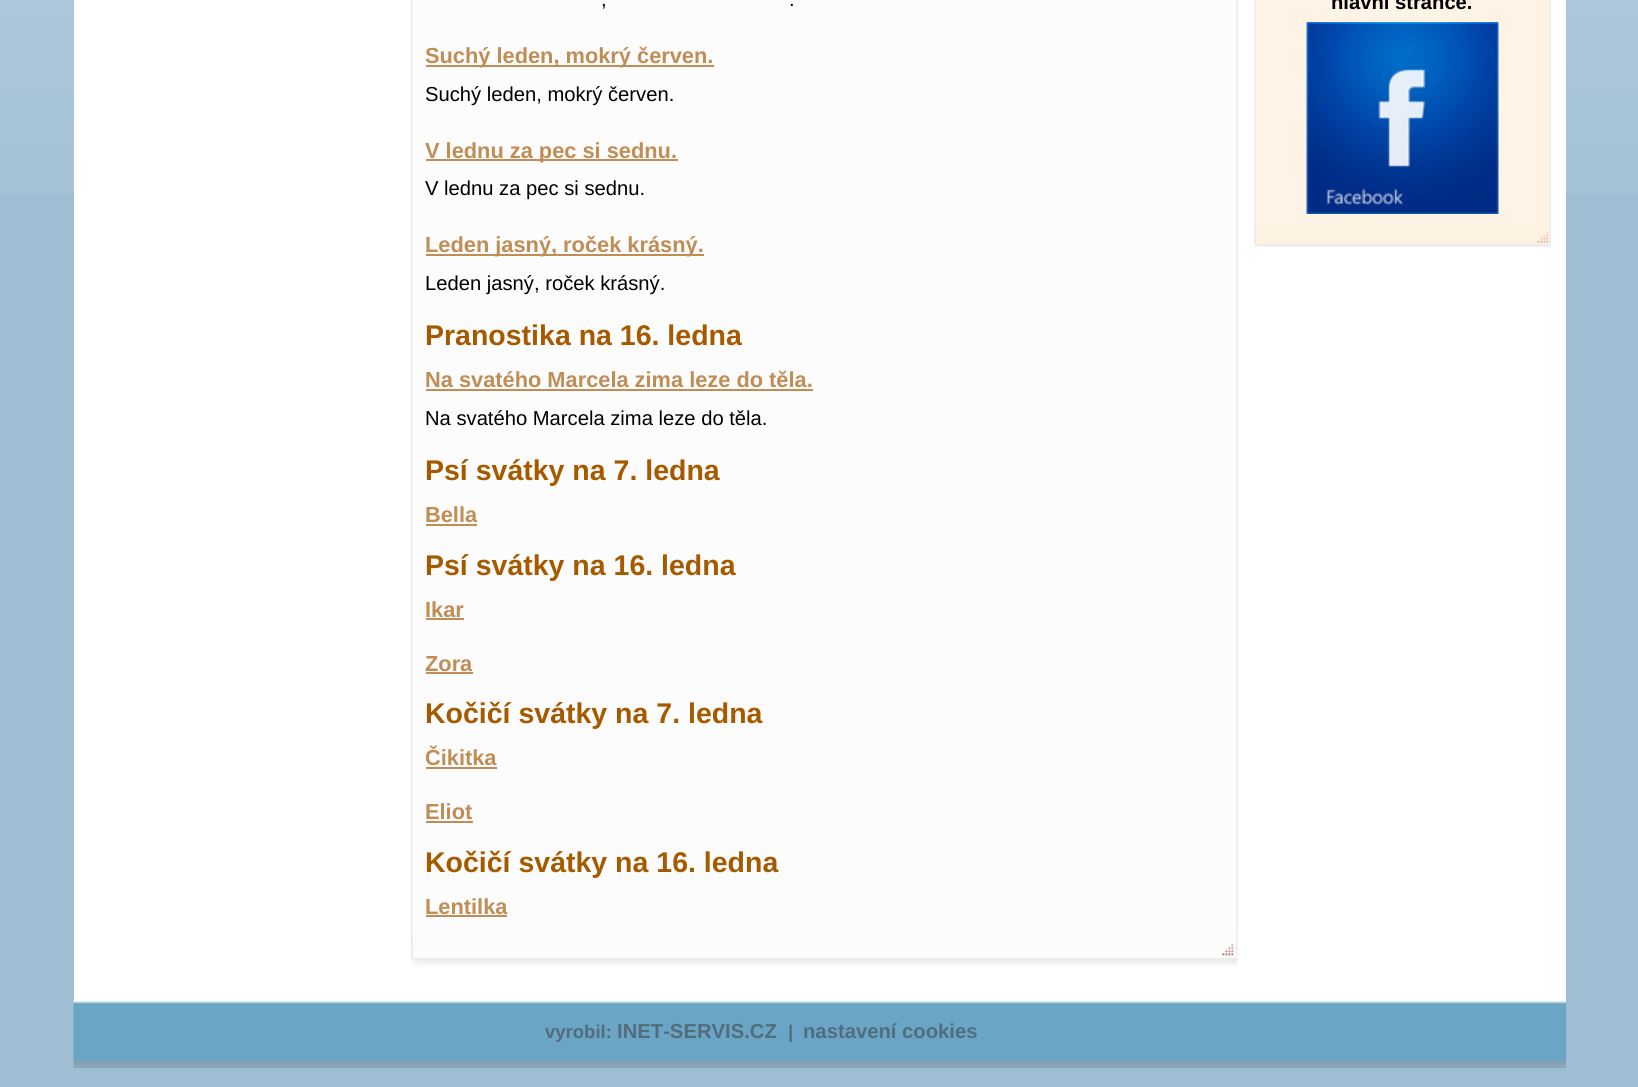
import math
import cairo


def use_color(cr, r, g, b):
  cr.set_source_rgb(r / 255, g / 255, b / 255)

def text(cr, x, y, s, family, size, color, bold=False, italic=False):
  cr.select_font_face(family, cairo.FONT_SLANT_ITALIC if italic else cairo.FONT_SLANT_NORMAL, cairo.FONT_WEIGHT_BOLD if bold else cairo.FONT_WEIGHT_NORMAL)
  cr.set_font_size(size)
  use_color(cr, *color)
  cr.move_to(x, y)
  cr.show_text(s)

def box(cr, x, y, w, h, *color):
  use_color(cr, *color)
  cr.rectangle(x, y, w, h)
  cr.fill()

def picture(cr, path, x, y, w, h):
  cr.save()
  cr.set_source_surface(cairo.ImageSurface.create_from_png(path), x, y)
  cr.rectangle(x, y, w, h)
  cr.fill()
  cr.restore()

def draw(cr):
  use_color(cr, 159, 190, 211)
  cr.paint()
  picture(cr, "img_01.png", 0, 0, 1638, 193)
  box(cr, 74, 0, 1492, 1000, 255, 255, 255)
  picture(cr, "img_02.png", 411, 0, 827, 933)
  box(cr, 426, 65, 288, 2, 192, 141, 85)
  box(cr, 426, 159, 252, 2, 192, 141, 85)
  box(cr, 426, 254, 278, 2, 192, 141, 85)
  box(cr, 426, 389, 387, 2, 192, 141, 85)
  box(cr, 426, 524, 51, 2, 192, 141, 85)
  box(cr, 426, 618, 38, 2, 192, 141, 85)
  box(cr, 426, 672, 47, 2, 192, 141, 85)
  box(cr, 426, 767, 71, 2, 192, 141, 85)
  box(cr, 426, 821, 47, 2, 192, 141, 85)
  box(cr, 426, 915, 81, 2, 192, 141, 85)
  picture(cr, "img_03.png", 411, 932, 827, 35)
  picture(cr, "img_04.png", 1254, 0, 297, 229)
  picture(cr, "img_05.png", 1306, 22, 193, 192)
  picture(cr, "img_06.png", 1254, 229, 297, 18)
  box(cr, 74, 1067, 1492, 1, 106, 165, 197)
  picture(cr, "img_07.png", 73, 1000, 1493, 68)
  text(cr, 601, 6, ",", "Liberation Sans", 20.2, (0, 0, 0))
  text(cr, 789, 6, ".", "Liberation Sans", 20.2, (0, 0, 0))
  text(cr, 425, 63, "Suchý leden, mokrý červen.", "Liberation Sans", 21.8, (192, 141, 85), bold=True)
  text(cr, 425, 101, "Suchý leden, mokrý červen.", "Liberation Sans", 20.2, (0, 0, 0))
  text(cr, 425, 158, "V lednu za pec si sednu.", "Liberation Sans", 21.8, (192, 141, 85), bold=True)
  text(cr, 425, 195, "V lednu za pec si sednu.", "Liberation Sans", 20.2, (0, 0, 0))
  text(cr, 425, 252, "Leden jasný, roček krásný.", "Liberation Sans", 21.8, (192, 141, 85), bold=True)
  text(cr, 425, 290, "Leden jasný, roček krásný.", "Liberation Sans", 20.2, (0, 0, 0))
  text(cr, 425, 345, "Pranostika na 16. ledna", "Liberation Sans", 28.5, (166, 90, 0), bold=True)
  text(cr, 425, 387, "Na svatého Marcela zima leze do těla.", "Liberation Sans", 21.8, (192, 141, 85), bold=True)
  text(cr, 425, 425, "Na svatého Marcela zima leze do těla.", "Liberation Sans", 20.2, (0, 0, 0))
  text(cr, 425, 480, "Psí svátky na 7. ledna", "Liberation Sans", 28.5, (166, 90, 0), bold=True)
  text(cr, 425, 522, "Bella", "Liberation Sans", 21.8, (192, 141, 85), bold=True)
  text(cr, 425, 575, "Psí svátky na 16. ledna", "Liberation Sans", 28.5, (166, 90, 0), bold=True)
  text(cr, 425, 617, "Ikar", "Liberation Sans", 21.8, (192, 141, 85), bold=True)
  text(cr, 425, 671, "Zora", "Liberation Sans", 21.8, (192, 141, 85), bold=True)
  text(cr, 425, 723, "Kočičí svátky na 7. ledna", "Liberation Sans", 28.5, (166, 90, 0), bold=True)
  text(cr, 425, 765, "Čikitka", "Liberation Sans", 21.8, (192, 141, 85), bold=True)
  text(cr, 425, 819, "Eliot", "Liberation Sans", 21.8, (192, 141, 85), bold=True)
  text(cr, 425, 872, "Kočičí svátky na 16. ledna", "Liberation Sans", 28.5, (166, 90, 0), bold=True)
  text(cr, 425, 914, "Lentilka", "Liberation Sans", 21.8, (192, 141, 85), bold=True)
  text(cr, 1331, 9, "hlavní stránce.", "Liberation Sans", 20.2, (0, 0, 0), bold=True)
  text(cr, 545, 1038, "vyrobil:", "Liberation Sans", 18.5, (81, 109, 124), bold=True)
  text(cr, 617, 1038, "INET-SERVIS.CZ", "Liberation Sans", 20.25, (81, 109, 124), bold=True)
  text(cr, 788, 1038, "|", "Liberation Sans", 18.5, (81, 109, 124), bold=True)
  text(cr, 803, 1038, "nastavení cookies", "Liberation Sans", 20.25, (81, 109, 124), bold=True)


surface = cairo.ImageSurface(cairo.FORMAT_RGB24, 1638, 1087)
cr = cairo.Context(surface)
options = cairo.FontOptions()
options.set_hint_metrics(cairo.HINT_METRICS_OFF)
options.set_hint_style(cairo.HINT_STYLE_NONE)
cr.set_font_options(options)
cr.set_miter_limit(4)
draw(cr)
surface.write_to_png("out.png")
